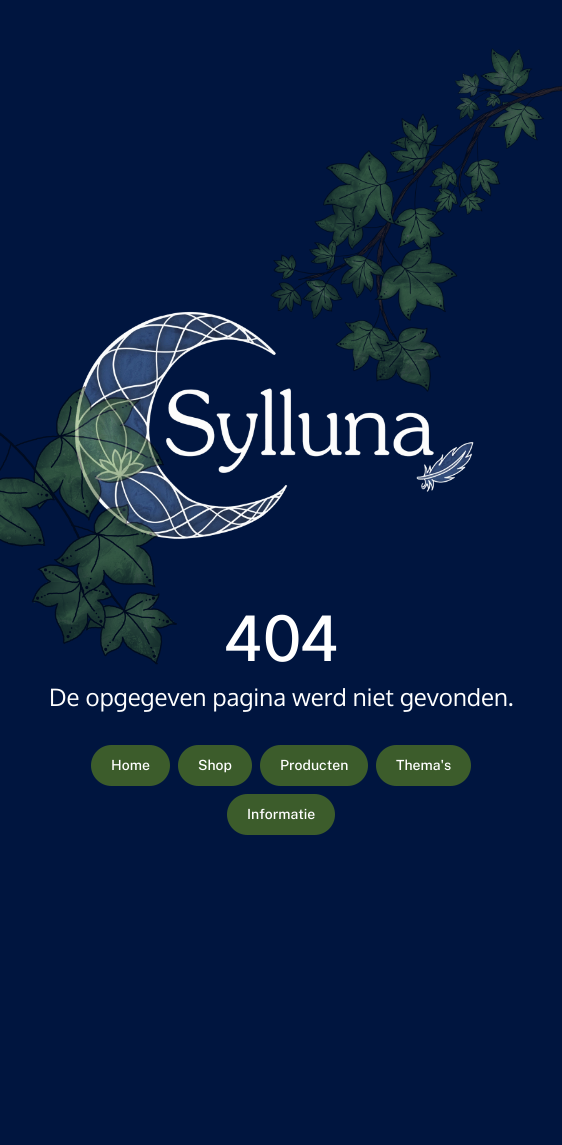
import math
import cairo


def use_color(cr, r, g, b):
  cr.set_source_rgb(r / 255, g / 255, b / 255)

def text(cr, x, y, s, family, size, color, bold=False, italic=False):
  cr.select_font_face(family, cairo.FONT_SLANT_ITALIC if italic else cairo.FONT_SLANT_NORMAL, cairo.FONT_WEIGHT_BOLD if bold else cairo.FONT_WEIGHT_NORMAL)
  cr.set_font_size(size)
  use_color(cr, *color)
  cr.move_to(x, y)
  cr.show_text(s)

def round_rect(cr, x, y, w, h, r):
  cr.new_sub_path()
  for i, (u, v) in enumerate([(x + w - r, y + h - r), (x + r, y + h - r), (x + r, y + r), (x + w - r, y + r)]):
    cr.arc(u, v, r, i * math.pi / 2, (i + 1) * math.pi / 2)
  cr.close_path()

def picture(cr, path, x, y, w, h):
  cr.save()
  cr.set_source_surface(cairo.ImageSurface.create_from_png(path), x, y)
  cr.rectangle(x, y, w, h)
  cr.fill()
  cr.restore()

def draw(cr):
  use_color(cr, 0, 21, 63)
  cr.paint()
  picture(cr, "img_03.png", 74, 311, 400, 229)
  picture(cr, "img_01.png", 270, 48, 292, 344)
  picture(cr, "img_02.png", 0, 386, 177, 279)
  use_color(cr, 60, 92, 43)
  round_rect(cr, 91, 745, 79, 41, 20.5)
  cr.fill()
  round_rect(cr, 178, 745, 74, 41, 20.5)
  cr.fill()
  round_rect(cr, 260, 745, 108, 41, 20.5)
  cr.fill()
  round_rect(cr, 376, 745, 95, 41, 20.5)
  cr.fill()
  round_rect(cr, 227, 794, 108, 41, 20.5)
  cr.fill()
  text(cr, 225, 661, "404", "Fauna One", 60, (255, 255, 255), bold=True)
  text(cr, 49, 706, "De opgegeven pagina werd niet gevonden.", "Oxygen", 24, (255, 255, 255))
  text(cr, 111, 770, "Home", "Public Sans Medium", 14, (255, 255, 255))
  text(cr, 198, 770, "Shop", "Public Sans Medium", 14, (255, 255, 255))
  text(cr, 280, 770, "Producten", "Public Sans Medium", 14, (255, 255, 255))
  text(cr, 396, 770, "Thema's", "Public Sans Medium", 14, (255, 255, 255))
  text(cr, 247, 819, "Informatie", "Public Sans Medium", 14, (255, 255, 255))


surface = cairo.ImageSurface(cairo.FORMAT_RGB24, 562, 1145)
cr = cairo.Context(surface)
options = cairo.FontOptions()
options.set_hint_metrics(cairo.HINT_METRICS_OFF)
options.set_hint_style(cairo.HINT_STYLE_NONE)
cr.set_font_options(options)
cr.set_miter_limit(4)
draw(cr)
surface.write_to_png("out.png")
